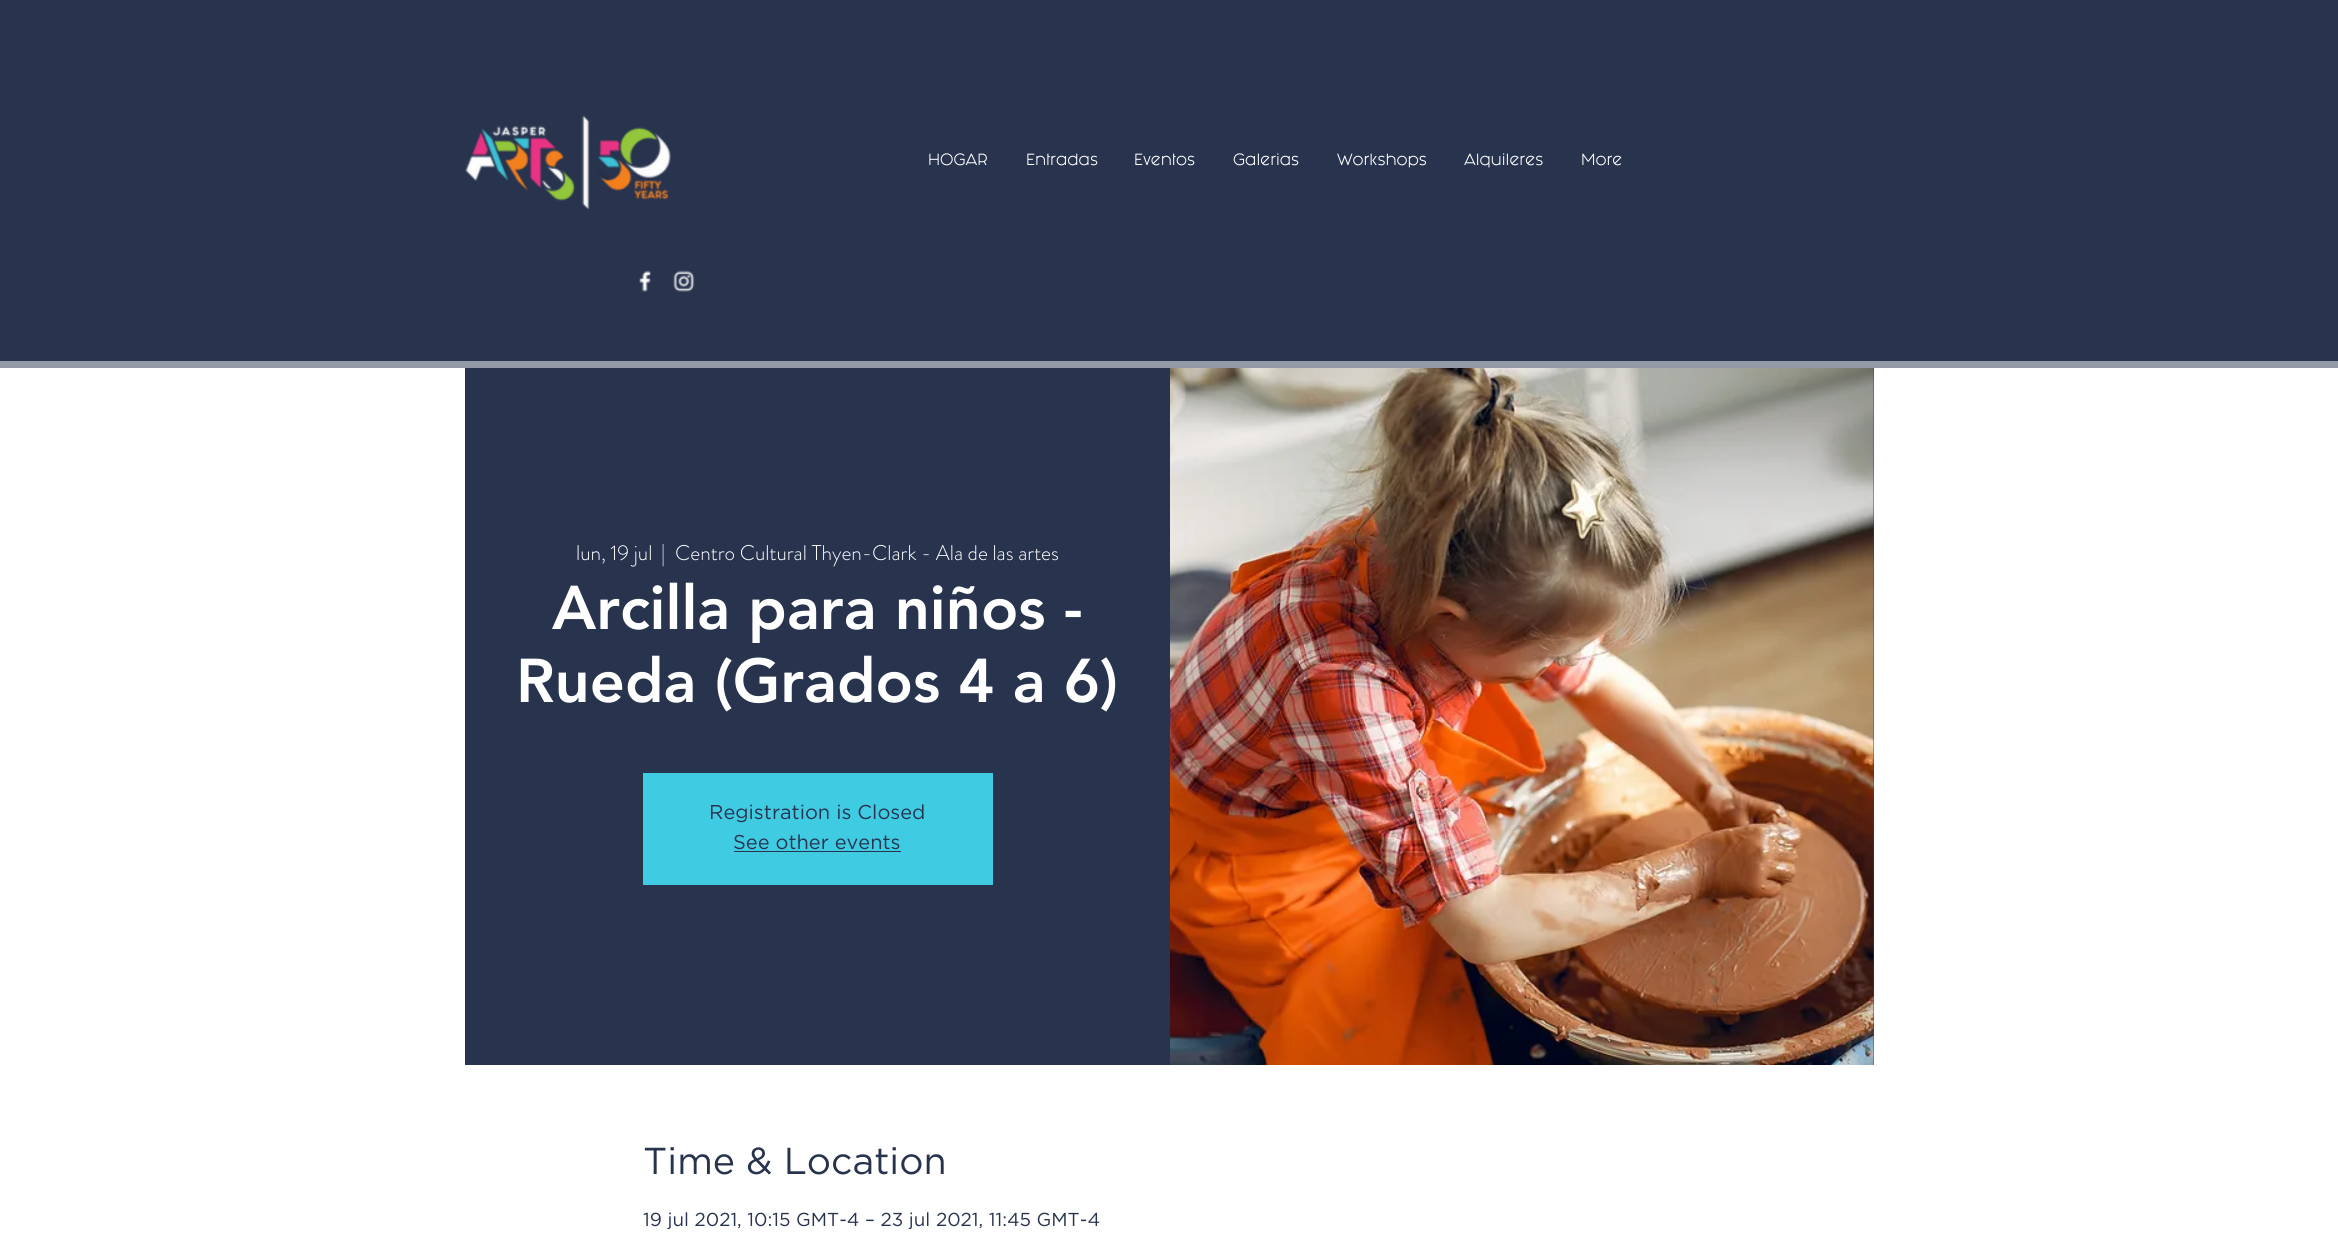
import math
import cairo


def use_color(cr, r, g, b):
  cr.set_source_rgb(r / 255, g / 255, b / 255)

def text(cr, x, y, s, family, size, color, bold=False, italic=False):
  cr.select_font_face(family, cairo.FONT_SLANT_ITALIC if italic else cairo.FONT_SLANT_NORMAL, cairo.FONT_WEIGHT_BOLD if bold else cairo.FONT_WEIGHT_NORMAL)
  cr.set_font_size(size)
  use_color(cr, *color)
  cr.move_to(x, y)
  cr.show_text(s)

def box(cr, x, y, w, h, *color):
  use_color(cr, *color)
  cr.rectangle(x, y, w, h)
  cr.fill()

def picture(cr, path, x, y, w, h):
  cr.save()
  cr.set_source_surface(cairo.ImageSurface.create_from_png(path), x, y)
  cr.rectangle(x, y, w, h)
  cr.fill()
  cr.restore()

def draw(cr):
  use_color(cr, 255, 255, 255)
  cr.paint()
  box(cr, 0, 361, 2338, 7, 148, 153, 167)
  box(cr, 0, 0, 2338, 361, 40, 51, 78)
  picture(cr, "img_01.png", 465, 115, 206, 95)
  picture(cr, "img_02.png", 639, 270, 12, 22)
  picture(cr, "img_03.png", 673, 270, 22, 22)
  box(cr, 465, 368, 705, 697, 40, 51, 78)
  box(cr, 643, 773, 350, 112, 63, 204, 227)
  box(cr, 734, 851, 167, 1, 40, 51, 78)
  box(cr, 1873, 368, 1, 697, 158, 17, 59)
  picture(cr, "img_04.png", 1170, 368, 704, 697)
  text(cr, 928, 165, "HOGAR", "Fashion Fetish", 13.75, (255, 255, 255))
  text(cr, 1026, 165, "Entradas", "Fashion Fetish", 13.75, (255, 255, 255))
  text(cr, 1134, 165, "Eventos", "Fashion Fetish", 13.75, (255, 255, 255))
  text(cr, 1233, 165, "Galerias", "Fashion Fetish", 13.75, (255, 255, 255))
  text(cr, 1337, 165, "Workshops", "Fashion Fetish", 13.75, (255, 255, 255))
  text(cr, 1464, 165, "Alquileres", "Fashion Fetish", 13.75, (255, 255, 255))
  text(cr, 1581, 165, "More", "Fashion Fetish", 13.75, (255, 255, 255))
  text(cr, 576, 560, "lun, 19 jul", "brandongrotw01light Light", 21.25, (255, 255, 255))
  text(cr, 661, 560, "|", "brandongrotw01light Light", 21.25, (255, 255, 255))
  text(cr, 675, 560, "Centro Cultural Thyen-Clark - Ala de las artes", "brandongrotw01light Light", 21.25, (255, 255, 255))
  text(cr, 552, 629, "Arcilla para niños -", "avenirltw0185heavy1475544 Black", 61.25, (255, 255, 255))
  text(cr, 516, 702, "Rueda (Grados 4 a 6)", "avenirltw0185heavy1475544 Black", 61.25, (255, 255, 255))
  text(cr, 709, 819, "Registration is Closed", "Gotham", 20, (40, 51, 78))
  text(cr, 733, 849, "See other events", "Gotham", 20, (40, 51, 78))
  text(cr, 643, 1174, "Time & Location", "Gotham", 37.5, (40, 51, 78))
  text(cr, 643, 1226, "19 jul 2021, 10:15 GMT-4 – 23 jul 2021, 11:45 GMT-4", "Gotham", 18.75, (40, 51, 78))


surface = cairo.ImageSurface(cairo.FORMAT_RGB24, 2338, 1246)
cr = cairo.Context(surface)
options = cairo.FontOptions()
options.set_hint_metrics(cairo.HINT_METRICS_OFF)
options.set_hint_style(cairo.HINT_STYLE_NONE)
cr.set_font_options(options)
cr.set_miter_limit(4)
draw(cr)
surface.write_to_png("out.png")
